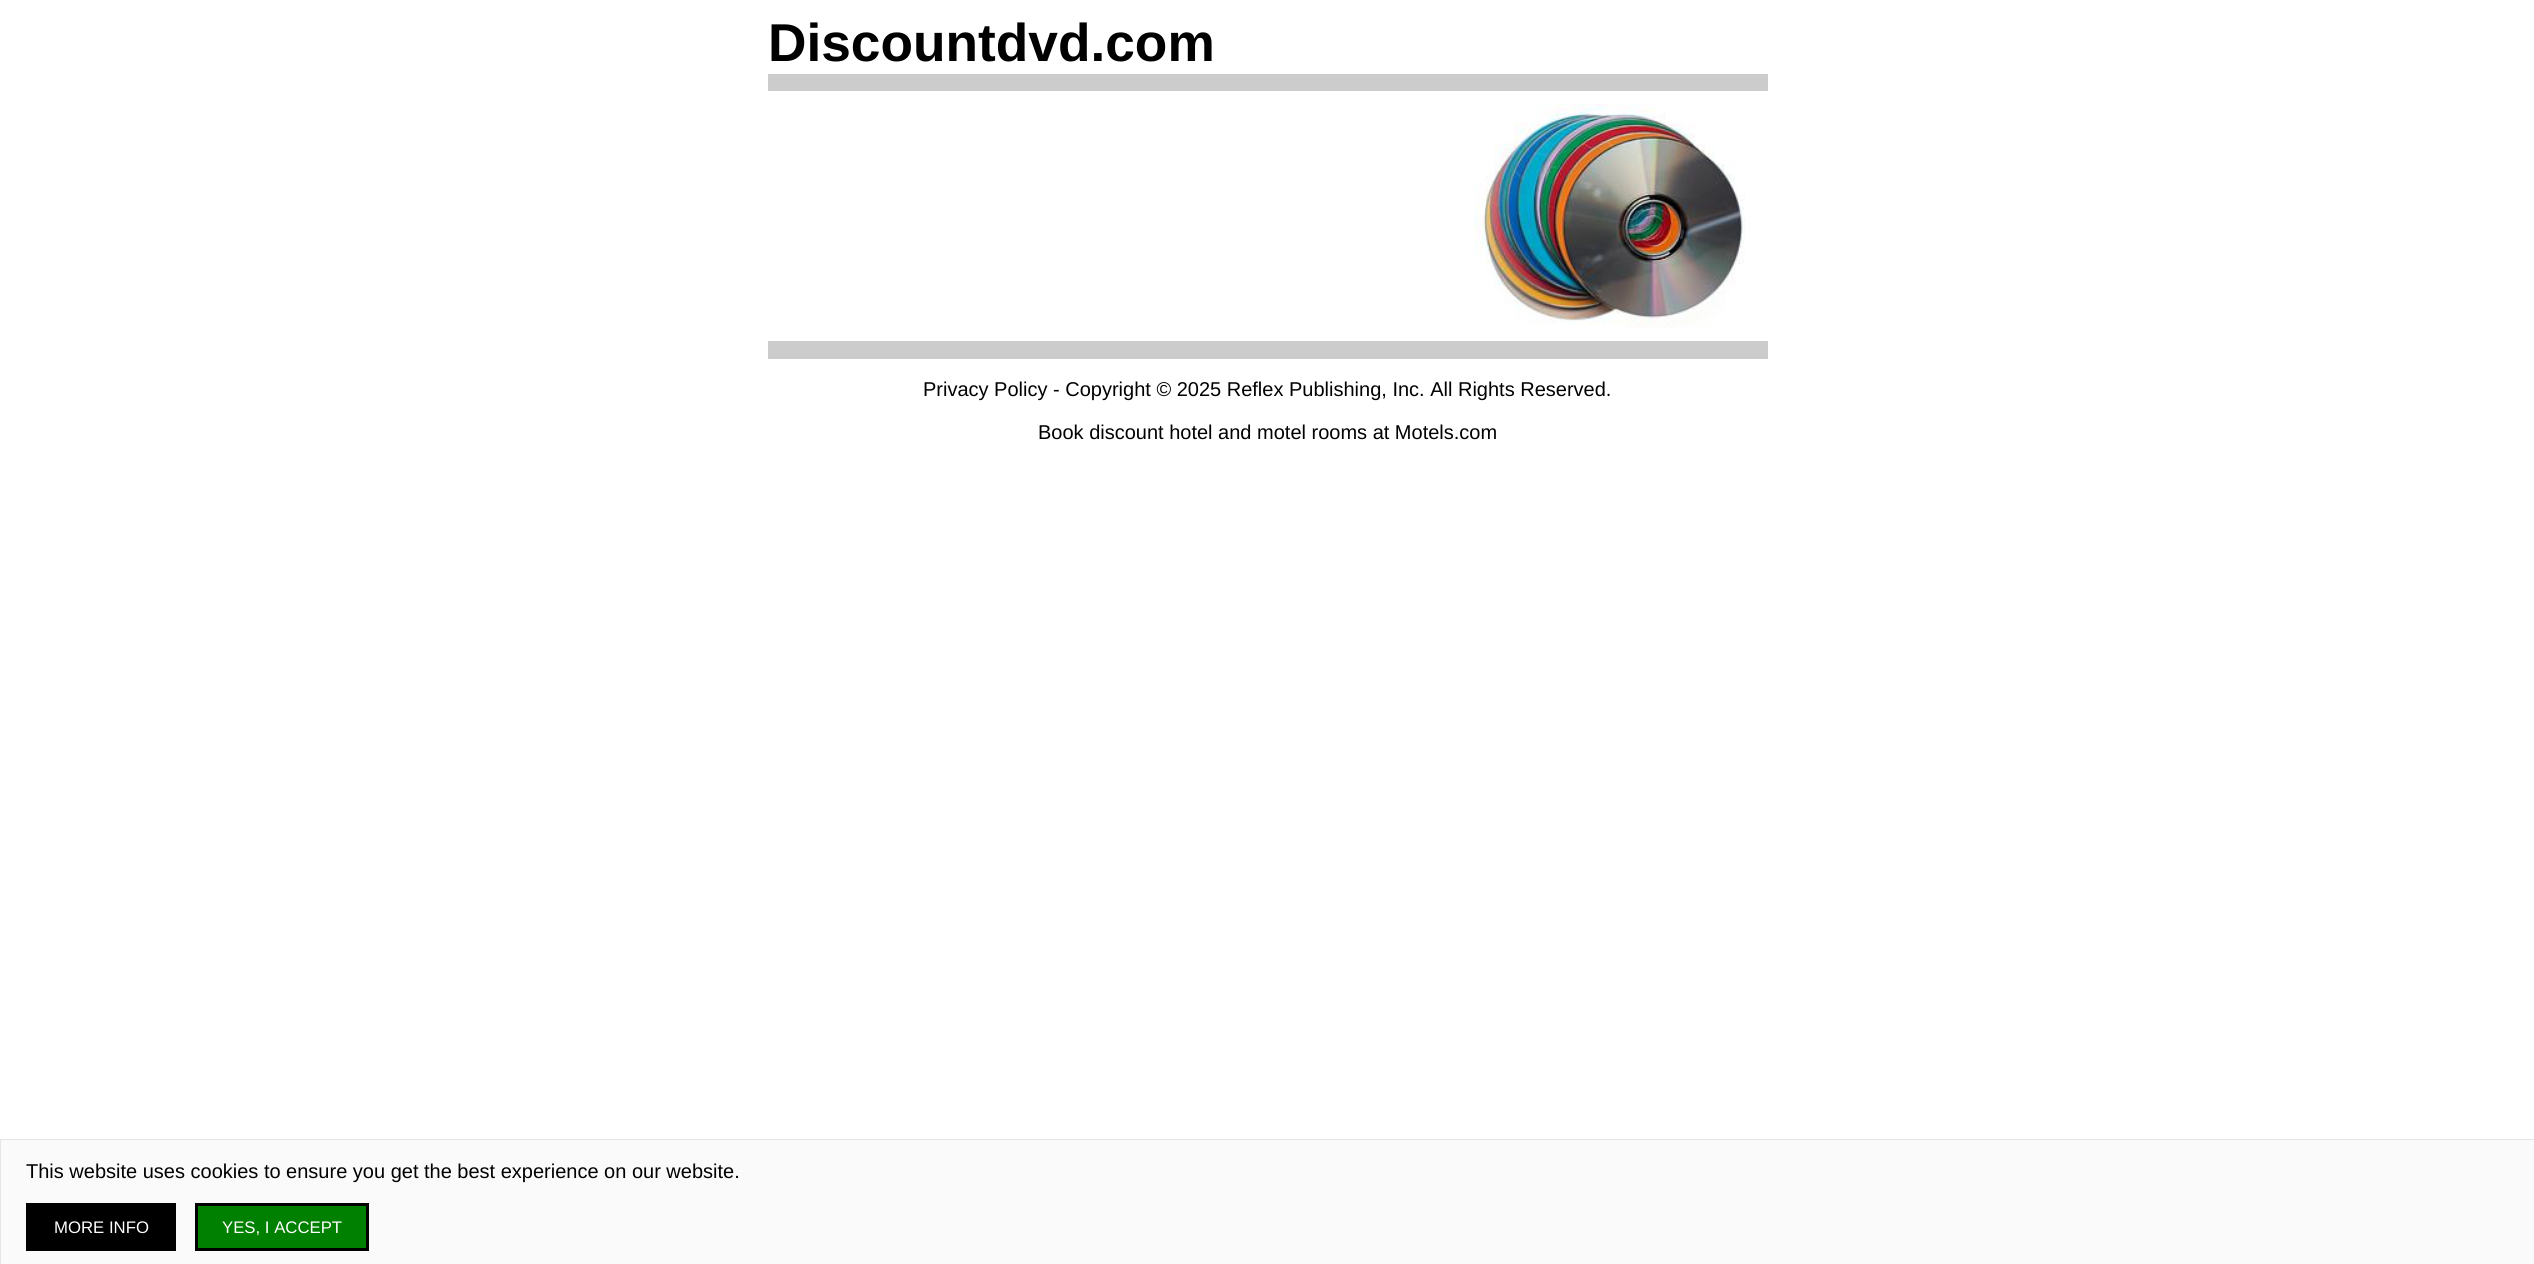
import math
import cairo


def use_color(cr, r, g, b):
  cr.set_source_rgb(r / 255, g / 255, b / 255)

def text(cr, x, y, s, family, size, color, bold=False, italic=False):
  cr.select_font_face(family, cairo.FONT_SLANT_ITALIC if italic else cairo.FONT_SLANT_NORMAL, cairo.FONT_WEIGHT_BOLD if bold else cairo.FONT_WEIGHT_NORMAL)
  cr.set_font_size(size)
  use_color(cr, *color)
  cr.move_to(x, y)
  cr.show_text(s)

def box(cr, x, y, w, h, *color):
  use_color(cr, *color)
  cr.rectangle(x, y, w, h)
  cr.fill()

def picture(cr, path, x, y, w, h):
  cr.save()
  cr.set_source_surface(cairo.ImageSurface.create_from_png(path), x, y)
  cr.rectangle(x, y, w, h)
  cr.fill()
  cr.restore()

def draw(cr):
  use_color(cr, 255, 255, 255)
  cr.paint()
  box(cr, 768, 74, 1000, 17, 204, 204, 204)
  picture(cr, "img_01.png", 1474, 103, 271, 225)
  box(cr, 768, 341, 1000, 18, 204, 204, 204)
  box(cr, 0, 1139, 2534, 125, 230, 230, 230)
  box(cr, 1, 1140, 2533, 124, 250, 250, 250)
  box(cr, 26, 1203, 150, 48, 0, 0, 0)
  use_color(cr, 0, 128, 0)
  cr.rectangle(196.5, 1204.5, 171, 45)
  cr.fill_preserve()
  use_color(cr, 0, 0, 0)
  cr.set_line_width(3)
  cr.stroke()
  text(cr, 768, 61, "Discountdvd.com", "Liberation Sans", 53.25, (0, 0, 0), bold=True)
  text(cr, 923, 396, "Privacy Policy - Copyright © 2025 Reflex Publishing, Inc. All Rights Reserved.", "Liberation Sans", 20, (0, 0, 0))
  text(cr, 1038, 439, "Book discount hotel and motel rooms at Motels.com", "Liberation Sans", 20, (0, 0, 0))
  text(cr, 26, 1178, "This website uses cookies to ensure you get the best experience on our website.", "Liberation Sans", 20, (0, 0, 0))
  text(cr, 54, 1233, "MORE INFO", "Liberation Sans", 16.75, (255, 255, 255))
  text(cr, 222, 1233, "YES, I ACCEPT", "Liberation Sans", 16.75, (255, 255, 255))


surface = cairo.ImageSurface(cairo.FORMAT_RGB24, 2534, 1264)
cr = cairo.Context(surface)
options = cairo.FontOptions()
options.set_hint_metrics(cairo.HINT_METRICS_OFF)
options.set_hint_style(cairo.HINT_STYLE_NONE)
cr.set_font_options(options)
cr.set_miter_limit(4)
draw(cr)
surface.write_to_png("out.png")
